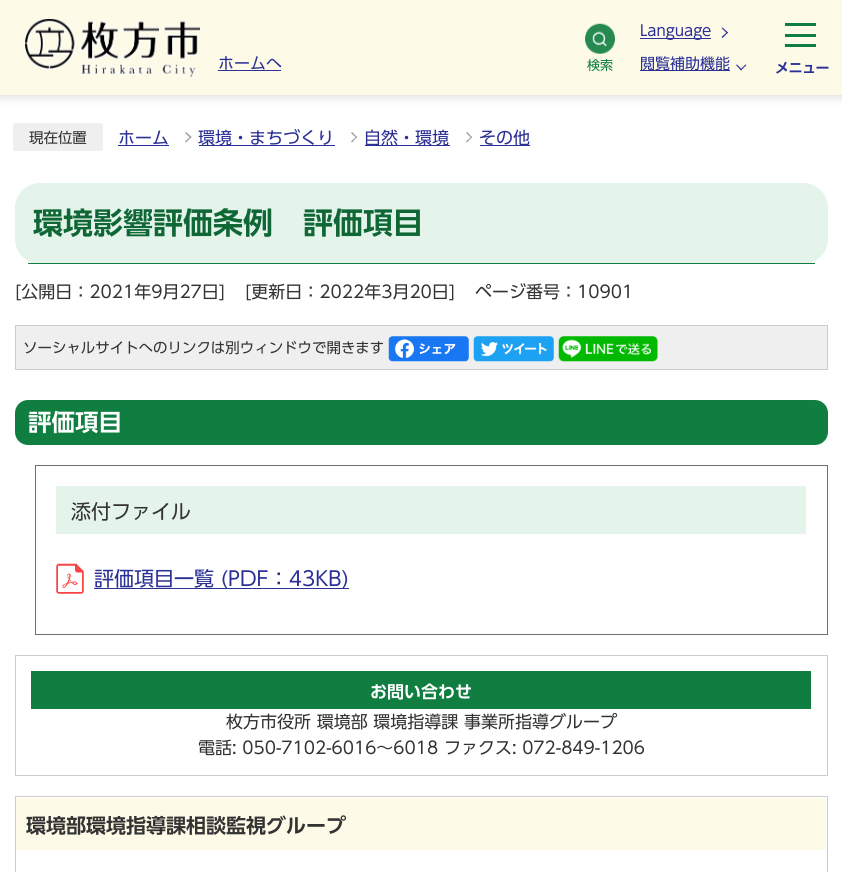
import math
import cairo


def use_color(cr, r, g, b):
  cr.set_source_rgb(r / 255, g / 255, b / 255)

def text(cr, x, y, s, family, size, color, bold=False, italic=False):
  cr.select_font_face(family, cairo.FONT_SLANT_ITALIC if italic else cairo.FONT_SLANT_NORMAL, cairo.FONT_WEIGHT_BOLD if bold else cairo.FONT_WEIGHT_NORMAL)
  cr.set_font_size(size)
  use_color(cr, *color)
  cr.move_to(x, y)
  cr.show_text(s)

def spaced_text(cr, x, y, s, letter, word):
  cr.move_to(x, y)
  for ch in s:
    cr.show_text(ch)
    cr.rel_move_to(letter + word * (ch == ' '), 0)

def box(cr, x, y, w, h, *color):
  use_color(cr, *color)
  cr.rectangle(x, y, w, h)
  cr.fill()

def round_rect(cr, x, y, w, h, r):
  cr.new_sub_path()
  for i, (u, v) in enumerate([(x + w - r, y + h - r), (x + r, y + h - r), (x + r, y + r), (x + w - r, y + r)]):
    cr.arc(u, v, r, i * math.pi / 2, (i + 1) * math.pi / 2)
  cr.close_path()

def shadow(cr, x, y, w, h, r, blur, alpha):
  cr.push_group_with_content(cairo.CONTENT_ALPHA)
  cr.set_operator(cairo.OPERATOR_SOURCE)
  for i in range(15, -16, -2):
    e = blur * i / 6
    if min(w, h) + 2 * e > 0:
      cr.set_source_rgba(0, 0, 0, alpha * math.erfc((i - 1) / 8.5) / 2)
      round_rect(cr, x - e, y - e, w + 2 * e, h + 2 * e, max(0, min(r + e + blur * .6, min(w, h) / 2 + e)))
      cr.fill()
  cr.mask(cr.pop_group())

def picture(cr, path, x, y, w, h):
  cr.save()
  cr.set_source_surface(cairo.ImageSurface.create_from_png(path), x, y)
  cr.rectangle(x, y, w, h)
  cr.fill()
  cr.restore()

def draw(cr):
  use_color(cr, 255, 255, 255)
  cr.paint()
  use_color(cr, 0, 0, 0)
  shadow(cr, 0, 0, 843, 95, 0, 6, 0.2)
  box(cr, 0, 0, 842, 95, 253, 251, 232)
  picture(cr, "img_01.png", 25, 19, 175, 58)
  box(cr, 218, 70, 63, 1, 43, 48, 149)
  picture(cr, "img_02.png", 585, 23, 30, 31)
  box(cr, 640, 38, 71, 1, 43, 48, 149)
  cr.new_path()
  cr.move_to(721.5, 28)
  cr.line_to(722.5, 27.5)
  cr.line_to(728, 32.5)
  cr.line_to(727, 33.5)
  cr.close_path()
  cr.fill()
  cr.new_path()
  cr.move_to(721.5, 37)
  cr.line_to(727, 32)
  cr.line_to(728, 32.5)
  cr.line_to(722.5, 38)
  cr.close_path()
  cr.fill()
  box(cr, 640, 70, 90, 1, 43, 48, 149)
  cr.new_path()
  cr.move_to(745.5, 64.5)
  cr.line_to(746.5, 65)
  cr.line_to(741, 70.5)
  cr.line_to(740.5, 69.5)
  cr.close_path()
  cr.fill()
  cr.new_path()
  cr.move_to(737, 64.5)
  cr.line_to(742, 69.5)
  cr.line_to(741, 70.5)
  cr.line_to(736, 65)
  cr.close_path()
  cr.fill()
  box(cr, 785, 23, 31, 3, 15, 126, 64)
  box(cr, 785, 34, 31, 3, 15, 126, 64)
  box(cr, 785, 44, 31, 3, 15, 126, 64)
  use_color(cr, 239, 239, 239)
  round_rect(cr, 13, 123, 90, 28, 2.5)
  cr.fill()
  box(cr, 118, 145, 51, 1, 43, 48, 149)
  use_color(cr, 153, 153, 153)
  cr.new_path()
  cr.move_to(185, 133)
  cr.line_to(186, 132)
  cr.line_to(191.5, 137)
  cr.line_to(190.5, 138)
  cr.close_path()
  cr.fill()
  cr.new_path()
  cr.move_to(185, 141.5)
  cr.line_to(190.5, 136.5)
  cr.line_to(191.5, 137)
  cr.line_to(186, 142.5)
  cr.close_path()
  cr.fill()
  box(cr, 199, 145, 136, 1, 43, 48, 149)
  use_color(cr, 153, 153, 153)
  cr.new_path()
  cr.move_to(351, 133)
  cr.line_to(352, 132)
  cr.line_to(357, 137)
  cr.line_to(356.5, 138)
  cr.close_path()
  cr.fill()
  cr.new_path()
  cr.move_to(351, 141.5)
  cr.line_to(356.5, 136.5)
  cr.line_to(357, 137)
  cr.line_to(352, 142.5)
  cr.close_path()
  cr.fill()
  box(cr, 365, 145, 85, 1, 43, 48, 149)
  use_color(cr, 153, 153, 153)
  cr.new_path()
  cr.move_to(466, 133)
  cr.line_to(467, 132)
  cr.line_to(472, 137)
  cr.line_to(471.5, 138)
  cr.close_path()
  cr.fill()
  cr.new_path()
  cr.move_to(466, 141.5)
  cr.line_to(471.5, 136.5)
  cr.line_to(472, 137)
  cr.line_to(467, 142.5)
  cr.close_path()
  cr.fill()
  box(cr, 480, 145, 50, 1, 43, 48, 149)
  use_color(cr, 228, 244, 235)
  round_rect(cr, 15, 183, 813, 81, 25)
  cr.fill()
  box(cr, 28, 263, 787, 1, 15, 126, 64)
  use_color(cr, 239, 239, 239)
  cr.rectangle(15.5, 325.5, 812, 44)
  cr.fill_preserve()
  use_color(cr, 204, 204, 204)
  cr.set_line_width(1)
  cr.stroke()
  picture(cr, "img_03.png", 388, 336, 81, 26)
  picture(cr, "img_04.png", 473, 336, 81, 26)
  picture(cr, "img_05.png", 558, 336, 100, 26)
  use_color(cr, 15, 126, 64)
  round_rect(cr, 15, 400, 813, 45, 13)
  cr.fill()
  cr.rectangle(35.5, 465.5, 792, 169)
  use_color(cr, 112, 112, 112)
  cr.stroke()
  box(cr, 56, 486, 750, 48, 228, 244, 235)
  picture(cr, "img_06.png", 56, 563, 28, 31)
  box(cr, 94, 588, 255, 1, 43, 48, 149)
  cr.rectangle(15.5, 655.5, 812, 120)
  use_color(cr, 204, 204, 204)
  cr.stroke()
  box(cr, 31, 671, 780, 38, 15, 126, 64)
  cr.rectangle(15.5, 796.5, 812, 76)
  use_color(cr, 204, 204, 204)
  cr.stroke()
  box(cr, 16, 798, 810, 52, 253, 251, 232)
  text(cr, 218, 69, "ホームへ", "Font", 16, (43, 48, 149))
  text(cr, 587, 70, "検索", "Font", 13, (15, 126, 64))
  text(cr, 640, 36, "Language", "Font", 15, (43, 48, 149))
  text(cr, 640, 69, "閲覧補助機能", "Font", 15, (43, 48, 149))
  cr.select_font_face("Font SemiBold")
  cr.set_font_size(14)
  spaced_text(cr, 775, 73, "メニュー", -0.5, 0)
  text(cr, 29, 143, "現在位置", "Font", 14.45, (51, 51, 51))
  text(cr, 118, 144, "ホーム", "Font", 17, (43, 48, 149))
  text(cr, 198, 144, "環境・まちづくり", "Font", 17, (43, 48, 149))
  text(cr, 364, 144, "自然・環境", "Font", 17, (43, 48, 149))
  text(cr, 479, 144, "その他", "Font", 17, (43, 48, 149))
  text(cr, 33, 234, "環境影響評価条例　評価項目", "Font SemiBold", 30, (15, 103, 54))
  text(cr, 15, 298, "[公開日：2021年9月27日]", "Font", 17, (51, 51, 51))
  text(cr, 245, 298, "[更新日：2022年3月20日]", "Font", 17, (51, 51, 51))
  text(cr, 475, 298, "ページ番号：10901", "Font", 17, (51, 51, 51))
  text(cr, 23, 353, "ソーシャルサイトへのリンクは別ウィンドウで開きます", "Font", 14.45, (51, 51, 51))
  text(cr, 28, 431, "評価項目", "Font SemiBold", 23.5, (255, 255, 255))
  text(cr, 71, 519, "添付ファイル", "Font", 20, (51, 51, 51))
  text(cr, 94, 586, "評価項目一覧 (PDF：43KB)", "Font", 20, (43, 48, 149))
  text(cr, 370, 698, "お問い合わせ", "Font SemiBold", 17, (255, 255, 255))
  text(cr, 226, 728, "枚方市役所 環境部 環境指導課 事業所指導グループ", "Font", 17, (51, 51, 51))
  text(cr, 198, 754, "電話: 050-7102-6016～6018 ファクス: 072-849-1206", "Font", 17, (51, 51, 51))
  text(cr, 26, 833, "環境部環境指導課相談監視グループ", "Font SemiBold", 20, (51, 51, 51))


surface = cairo.ImageSurface(cairo.FORMAT_RGB24, 842, 872)
cr = cairo.Context(surface)
options = cairo.FontOptions()
options.set_hint_metrics(cairo.HINT_METRICS_OFF)
options.set_hint_style(cairo.HINT_STYLE_NONE)
cr.set_font_options(options)
cr.set_miter_limit(4)
draw(cr)
surface.write_to_png("out.png")
